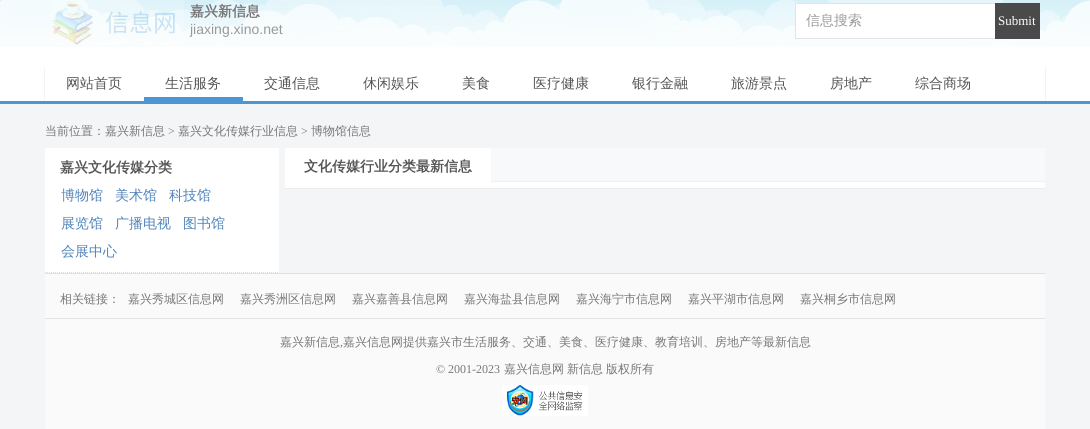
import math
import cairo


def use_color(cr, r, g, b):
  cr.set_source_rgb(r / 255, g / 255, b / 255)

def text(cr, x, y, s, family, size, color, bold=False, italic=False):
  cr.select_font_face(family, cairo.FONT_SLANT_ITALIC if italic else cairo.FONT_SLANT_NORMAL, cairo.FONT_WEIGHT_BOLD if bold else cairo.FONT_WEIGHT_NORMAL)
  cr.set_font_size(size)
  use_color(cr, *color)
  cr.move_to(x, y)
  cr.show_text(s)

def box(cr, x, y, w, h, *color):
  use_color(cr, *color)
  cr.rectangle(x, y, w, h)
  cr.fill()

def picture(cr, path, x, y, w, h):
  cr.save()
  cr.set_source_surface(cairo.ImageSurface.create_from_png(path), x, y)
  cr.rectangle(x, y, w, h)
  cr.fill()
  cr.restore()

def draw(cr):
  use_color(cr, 244, 245, 247)
  cr.paint()
  box(cr, 0, 47, 1090, 54, 255, 255, 255)
  picture(cr, "img_01.png", 0, 0, 1090, 47)
  picture(cr, "img_02.png", 52, 0, 132, 45)
  box(cr, 796, 4, 199, 34, 255, 255, 255)
  box(cr, 795, 3, 201, 1, 227, 227, 227)
  box(cr, 795, 38, 201, 1, 227, 227, 227)
  box(cr, 795, 3, 1, 36, 227, 227, 227)
  box(cr, 995, 3, 45, 36, 74, 74, 74)
  box(cr, 0, 101, 1090, 3, 77, 150, 212)
  box(cr, 1045, 67, 1, 34, 243, 243, 243)
  box(cr, 44, 67, 1, 34, 243, 243, 243)
  box(cr, 144, 97, 99, 4, 77, 150, 212)
  box(cr, 45, 148, 234, 125, 255, 255, 255)
  cr.new_path()
  cr.move_to(45, 272.5)
  cr.line_to(279, 272.5)
  use_color(cr, 221, 221, 221)
  cr.set_line_width(1)
  cr.set_dash([1, 1])
  cr.stroke()
  box(cr, 491, 182, 554, 6, 255, 255, 255)
  box(cr, 285, 188, 760, 1, 235, 235, 235)
  box(cr, 491, 148, 554, 33, 248, 249, 250)
  box(cr, 491, 181, 554, 1, 241, 241, 228)
  box(cr, 285, 148, 206, 40, 255, 255, 255)
  box(cr, 45, 274, 1000, 155, 250, 250, 250)
  box(cr, 45, 273, 1000, 1, 221, 225, 230)
  box(cr, 45, 318, 1000, 1, 227, 227, 227)
  picture(cr, "img_03.png", 502, 385, 86, 31)
  text(cr, 190, 16, "嘉兴新信息", "WenQuanYi Zen Hei", 14, (119, 119, 119), bold=True)
  text(cr, 190, 34, "jiaxing.xino.net", "Liberation Sans", 14, (153, 153, 153))
  text(cr, 806, 25, "信息搜索", "WenQuanYi Zen Hei Medium", 14, (153, 153, 153))
  text(cr, 998, 25, "Submit", "Liberation Serif", 13, (255, 255, 255))
  text(cr, 66, 88, "网站首页", "WenQuanYi Zen Hei Medium", 14, (85, 85, 85))
  text(cr, 165, 88, "生活服务", "WenQuanYi Zen Hei Medium", 14, (85, 85, 85))
  text(cr, 264, 88, "交通信息", "WenQuanYi Zen Hei Medium", 14, (85, 85, 85))
  text(cr, 363, 88, "休闲娱乐", "WenQuanYi Zen Hei Medium", 14, (85, 85, 85))
  text(cr, 462, 88, "美食", "WenQuanYi Zen Hei Medium", 14, (85, 85, 85))
  text(cr, 533, 88, "医疗健康", "WenQuanYi Zen Hei Medium", 14, (85, 85, 85))
  text(cr, 632, 88, "银行金融", "WenQuanYi Zen Hei Medium", 14, (85, 85, 85))
  text(cr, 731, 88, "旅游景点", "WenQuanYi Zen Hei Medium", 14, (85, 85, 85))
  text(cr, 830, 88, "房地产", "WenQuanYi Zen Hei Medium", 14, (85, 85, 85))
  text(cr, 915, 88, "综合商场", "WenQuanYi Zen Hei Medium", 14, (85, 85, 85))
  text(cr, 45, 135, "当前位置：嘉兴新信息", "WenQuanYi Zen Hei Medium", 12, (119, 119, 119))
  text(cr, 168, 135, ">", "Liberation Serif", 12, (119, 119, 119))
  text(cr, 178, 135, "嘉兴文化传媒行业信息", "WenQuanYi Zen Hei Medium", 12, (119, 119, 119))
  text(cr, 301, 135, ">", "Liberation Serif", 12, (119, 119, 119))
  text(cr, 311, 135, "博物馆信息", "WenQuanYi Zen Hei Medium", 12, (119, 119, 119))
  text(cr, 60, 172, "嘉兴文化传媒分类", "WenQuanYi Zen Hei", 14, (85, 85, 85), bold=True)
  text(cr, 61, 200, "博物馆", "WenQuanYi Zen Hei Medium", 14, (82, 133, 188))
  text(cr, 115, 200, "美术馆", "WenQuanYi Zen Hei Medium", 14, (82, 133, 188))
  text(cr, 169, 200, "科技馆", "WenQuanYi Zen Hei Medium", 14, (82, 133, 188))
  text(cr, 61, 228, "展览馆", "WenQuanYi Zen Hei Medium", 14, (82, 133, 188))
  text(cr, 115, 228, "广播电视", "WenQuanYi Zen Hei Medium", 14, (82, 133, 188))
  text(cr, 183, 228, "图书馆", "WenQuanYi Zen Hei Medium", 14, (82, 133, 188))
  text(cr, 61, 256, "会展中心", "WenQuanYi Zen Hei Medium", 14, (82, 133, 188))
  text(cr, 304, 171, "文化传媒行业分类最新信息", "WenQuanYi Zen Hei", 14, (85, 85, 85), bold=True)
  text(cr, 60, 303, "相关链接：", "WenQuanYi Zen Hei Medium", 12, (119, 119, 119))
  text(cr, 128, 303, "嘉兴秀城区信息网", "WenQuanYi Zen Hei Medium", 12, (119, 119, 119))
  text(cr, 240, 303, "嘉兴秀洲区信息网", "WenQuanYi Zen Hei Medium", 12, (119, 119, 119))
  text(cr, 352, 303, "嘉兴嘉善县信息网", "WenQuanYi Zen Hei Medium", 12, (119, 119, 119))
  text(cr, 464, 303, "嘉兴海盐县信息网", "WenQuanYi Zen Hei Medium", 12, (119, 119, 119))
  text(cr, 576, 303, "嘉兴海宁市信息网", "WenQuanYi Zen Hei Medium", 12, (119, 119, 119))
  text(cr, 688, 303, "嘉兴平湖市信息网", "WenQuanYi Zen Hei Medium", 12, (119, 119, 119))
  text(cr, 800, 303, "嘉兴桐乡市信息网", "WenQuanYi Zen Hei Medium", 12, (119, 119, 119))
  text(cr, 280, 346, "嘉兴新信息", "WenQuanYi Zen Hei Medium", 12, (119, 119, 119))
  text(cr, 340, 346, ",", "Liberation Serif", 12, (119, 119, 119))
  text(cr, 343, 346, "嘉兴信息网提供嘉兴市生活服务、交通、美食、医疗健康、教育培训、房地产等最新信息", "WenQuanYi Zen Hei Medium", 12, (119, 119, 119))
  text(cr, 436, 373, "© 2001-2023", "Liberation Serif", 12, (119, 119, 119))
  text(cr, 504, 373, "嘉兴信息网", "WenQuanYi Zen Hei Medium", 12, (119, 119, 119))
  text(cr, 567, 373, "新信息", "WenQuanYi Zen Hei Medium", 12, (119, 119, 119))
  text(cr, 606, 373, "版权所有", "WenQuanYi Zen Hei Medium", 12, (119, 119, 119))


surface = cairo.ImageSurface(cairo.FORMAT_RGB24, 1090, 429)
cr = cairo.Context(surface)
options = cairo.FontOptions()
options.set_hint_metrics(cairo.HINT_METRICS_OFF)
options.set_hint_style(cairo.HINT_STYLE_NONE)
cr.set_font_options(options)
cr.set_miter_limit(4)
draw(cr)
surface.write_to_png("out.png")
